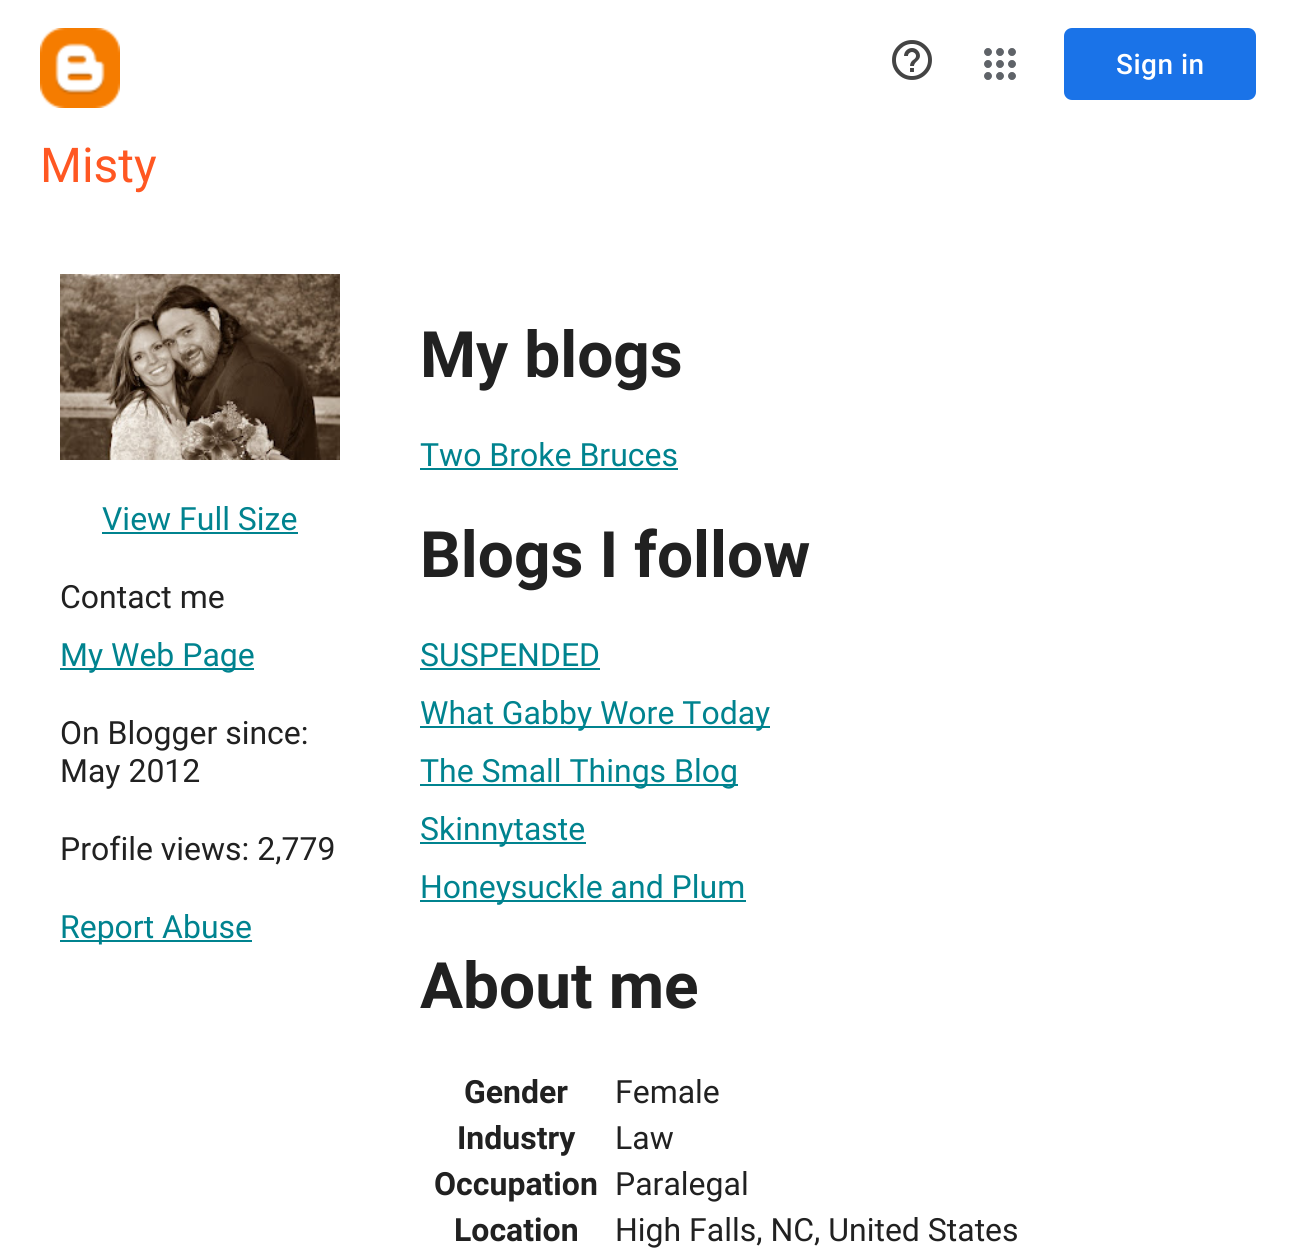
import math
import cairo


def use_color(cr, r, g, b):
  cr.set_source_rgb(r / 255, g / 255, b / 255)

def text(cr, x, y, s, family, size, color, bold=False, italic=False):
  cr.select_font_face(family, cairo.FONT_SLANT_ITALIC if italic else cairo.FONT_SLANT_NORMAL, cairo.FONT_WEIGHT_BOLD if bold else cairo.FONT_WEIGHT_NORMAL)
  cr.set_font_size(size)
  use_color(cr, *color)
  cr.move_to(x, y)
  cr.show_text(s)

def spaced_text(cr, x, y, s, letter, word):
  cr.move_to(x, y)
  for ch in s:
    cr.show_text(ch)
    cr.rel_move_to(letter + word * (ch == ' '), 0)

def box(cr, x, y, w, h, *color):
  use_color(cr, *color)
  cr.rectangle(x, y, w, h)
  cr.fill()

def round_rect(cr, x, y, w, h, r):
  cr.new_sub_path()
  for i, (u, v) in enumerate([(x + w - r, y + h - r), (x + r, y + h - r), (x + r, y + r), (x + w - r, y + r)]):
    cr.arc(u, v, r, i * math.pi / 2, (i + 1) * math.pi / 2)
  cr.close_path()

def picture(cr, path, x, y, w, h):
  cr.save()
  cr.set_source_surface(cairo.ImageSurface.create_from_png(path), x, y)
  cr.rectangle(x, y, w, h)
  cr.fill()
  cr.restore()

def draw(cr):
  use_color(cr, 255, 255, 255)
  cr.paint()
  picture(cr, "img_01.png", 40, 28, 80, 80)
  picture(cr, "img_02.png", 892, 40, 40, 40)
  picture(cr, "img_03.png", 984, 48, 32, 32)
  use_color(cr, 26, 115, 232)
  round_rect(cr, 1064, 28, 192, 72, 8)
  cr.fill()
  picture(cr, "img_04.png", 60, 274, 280, 186)
  box(cr, 102, 532, 196, 2, 0, 131, 143)
  box(cr, 60, 668, 194, 2, 0, 131, 143)
  box(cr, 60, 940, 192, 2, 0, 131, 143)
  box(cr, 420, 468, 258, 2, 0, 131, 143)
  box(cr, 420, 668, 180, 2, 0, 131, 143)
  box(cr, 420, 726, 350, 2, 0, 131, 143)
  box(cr, 420, 784, 318, 2, 0, 131, 143)
  box(cr, 420, 842, 166, 2, 0, 131, 143)
  box(cr, 420, 900, 326, 2, 0, 131, 143)
  cr.select_font_face("Roboto Medium")
  cr.set_font_size(28)
  use_color(cr, 255, 255, 255)
  spaced_text(cr, 1116, 74, "Sign in", 0.5, 0)
  text(cr, 40, 182, "Misty", "Roboto", 48, (255, 87, 34))
  text(cr, 102, 530, "View Full Size", "Roboto", 32, (0, 131, 143))
  text(cr, 60, 608, "Contact me", "Roboto", 32, (33, 33, 33))
  text(cr, 60, 666, "My Web Page", "Roboto", 32, (0, 131, 143))
  text(cr, 60, 744, "On Blogger since:", "Roboto", 32, (33, 33, 33))
  text(cr, 60, 782, "May 2012", "Roboto", 32, (33, 33, 33))
  text(cr, 60, 860, "Profile views: 2,779", "Roboto", 32, (33, 33, 33))
  text(cr, 60, 938, "Report Abuse", "Roboto", 32, (0, 131, 143))
  text(cr, 420, 377, "My blogs", "Roboto", 64, (33, 33, 33), bold=True)
  text(cr, 420, 466, "Two Broke Bruces", "Roboto", 32, (0, 131, 143))
  text(cr, 420, 577, "Blogs I follow", "Roboto", 64, (33, 33, 33), bold=True)
  text(cr, 420, 666, "SUSPENDED", "Roboto", 32, (0, 131, 143))
  text(cr, 420, 724, "What Gabby Wore Today", "Roboto", 32, (0, 131, 143))
  text(cr, 420, 782, "The Small Things Blog", "Roboto", 32, (0, 131, 143))
  text(cr, 420, 840, "Skinnytaste", "Roboto", 32, (0, 131, 143))
  text(cr, 420, 898, "Honeysuckle and Plum", "Roboto", 32, (0, 131, 143))
  text(cr, 420, 1008, "About me", "Roboto", 64, (33, 33, 33), bold=True)
  text(cr, 464, 1103, "Gender", "Roboto", 32, (33, 33, 33), bold=True)
  text(cr, 615, 1103, "Female", "Roboto", 32, (33, 33, 33))
  text(cr, 457, 1149, "Industry", "Roboto", 32, (33, 33, 33), bold=True)
  text(cr, 615, 1149, "Law", "Roboto", 32, (33, 33, 33))
  text(cr, 434, 1195, "Occupation", "Roboto", 32, (33, 33, 33), bold=True)
  text(cr, 615, 1195, "Paralegal", "Roboto", 32, (33, 33, 33))
  text(cr, 454, 1241, "Location", "Roboto", 32, (33, 33, 33), bold=True)
  text(cr, 615, 1241, "High Falls, NC, United States", "Roboto", 32, (33, 33, 33))


surface = cairo.ImageSurface(cairo.FORMAT_RGB24, 1296, 1249)
cr = cairo.Context(surface)
options = cairo.FontOptions()
options.set_hint_metrics(cairo.HINT_METRICS_OFF)
options.set_hint_style(cairo.HINT_STYLE_NONE)
cr.set_font_options(options)
cr.set_miter_limit(4)
draw(cr)
surface.write_to_png("out.png")
